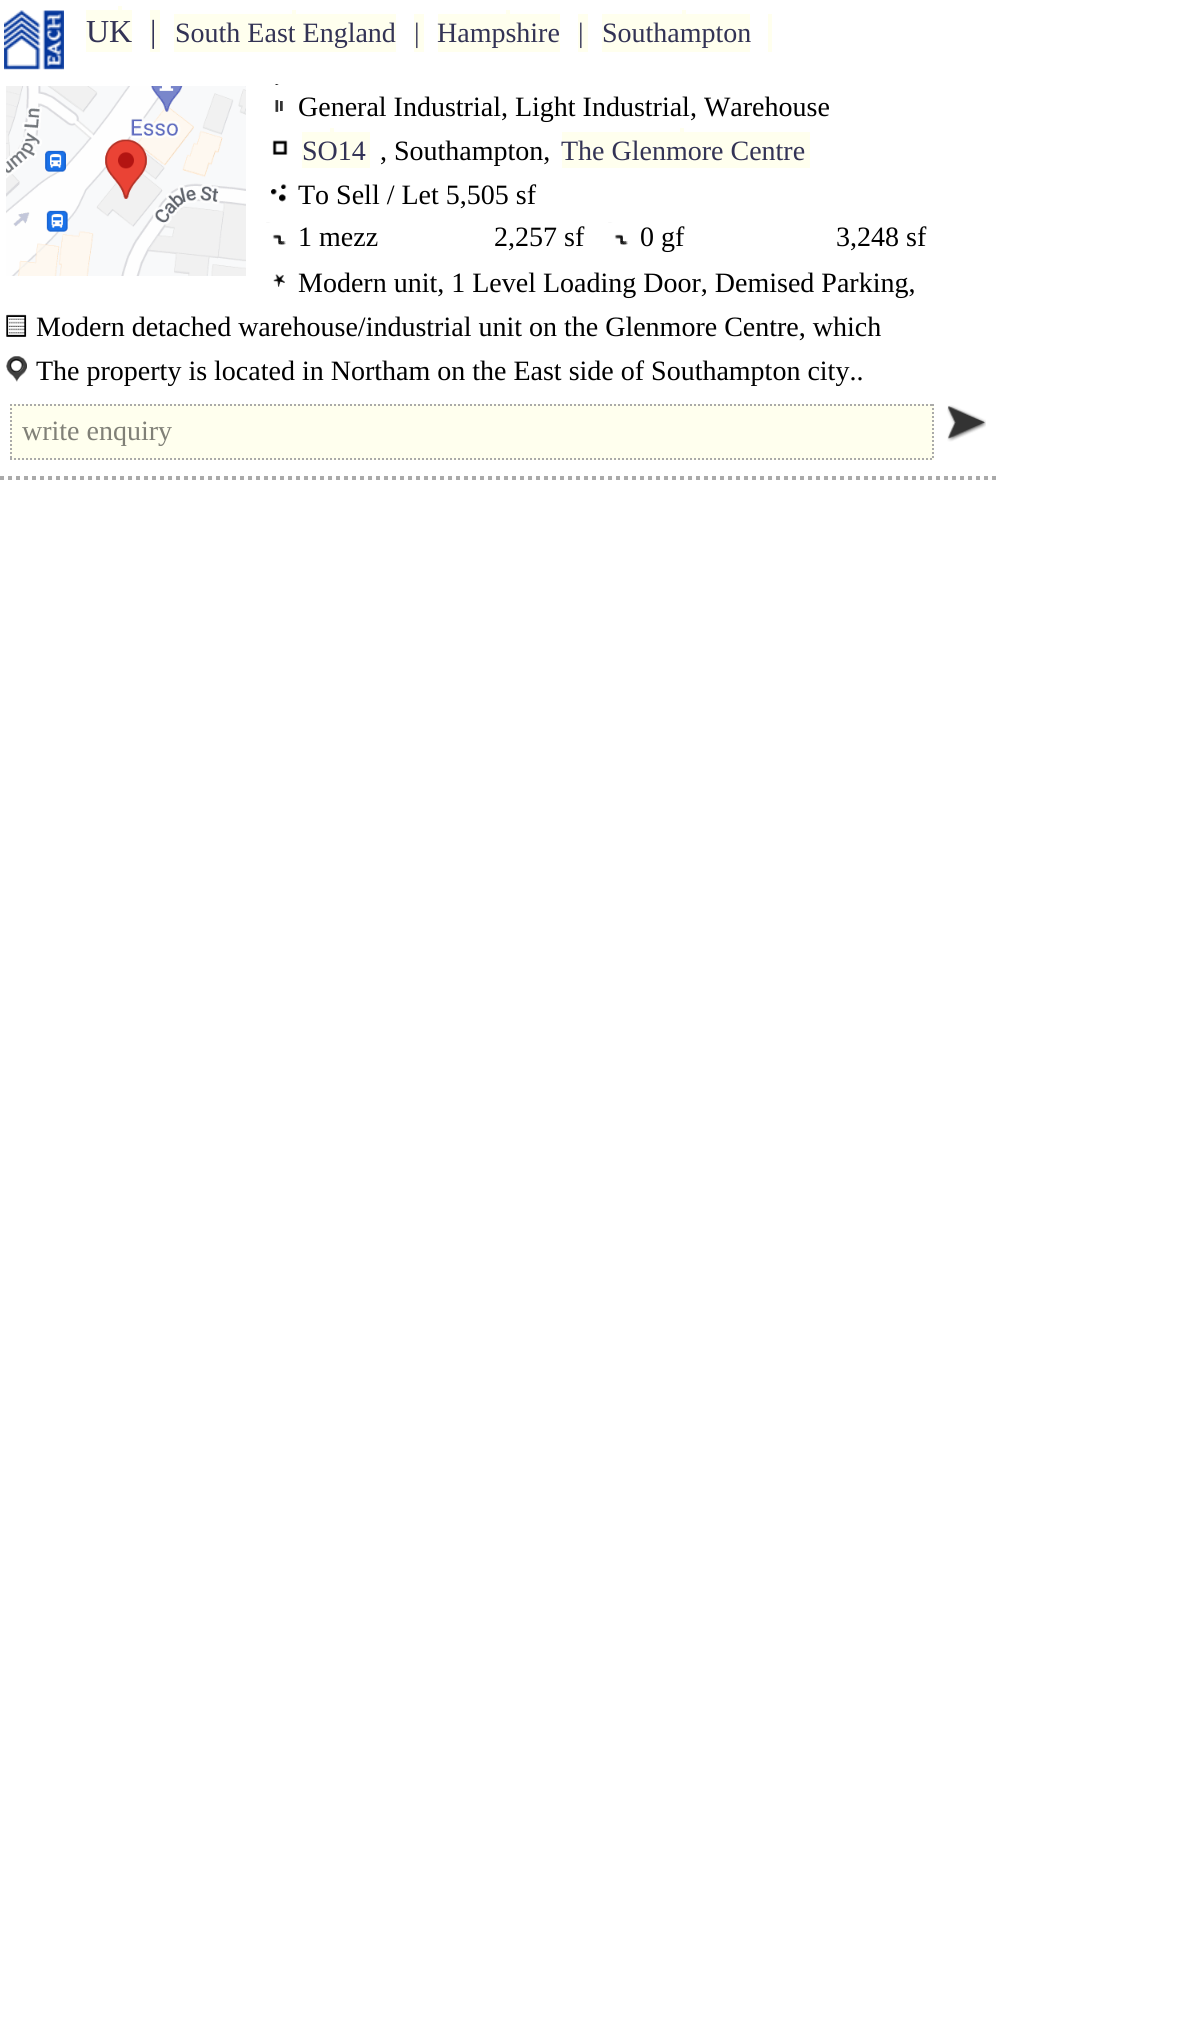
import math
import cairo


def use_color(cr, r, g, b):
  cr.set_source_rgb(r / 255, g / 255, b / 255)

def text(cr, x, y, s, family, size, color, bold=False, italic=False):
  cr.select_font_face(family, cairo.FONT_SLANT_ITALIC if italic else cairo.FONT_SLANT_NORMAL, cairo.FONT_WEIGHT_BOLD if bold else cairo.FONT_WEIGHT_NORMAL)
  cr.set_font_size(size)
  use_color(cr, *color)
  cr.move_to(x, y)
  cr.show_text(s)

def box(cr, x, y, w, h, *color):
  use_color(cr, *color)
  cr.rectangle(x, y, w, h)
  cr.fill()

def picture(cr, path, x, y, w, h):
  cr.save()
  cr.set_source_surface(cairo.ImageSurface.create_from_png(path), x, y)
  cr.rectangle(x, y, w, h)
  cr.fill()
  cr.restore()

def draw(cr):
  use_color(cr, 255, 255, 255)
  cr.paint()
  picture(cr, "img_01.png", 4, 10, 60, 60)
  box(cr, 118, 6, 4, 12, 255, 255, 238)
  box(cr, 86, 10, 46, 42, 255, 255, 238)
  box(cr, 150, 10, 10, 42, 255, 255, 238)
  box(cr, 292, 10, 4, 12, 255, 255, 238)
  box(cr, 174, 14, 222, 38, 255, 255, 238)
  box(cr, 414, 14, 10, 38, 255, 255, 238)
  box(cr, 506, 10, 4, 12, 255, 255, 238)
  box(cr, 438, 14, 122, 38, 255, 255, 238)
  box(cr, 578, 14, 10, 38, 255, 255, 238)
  box(cr, 682, 10, 4, 12, 255, 255, 238)
  box(cr, 602, 14, 148, 38, 255, 255, 238)
  box(cr, 768, 14, 4, 38, 255, 255, 238)
  cr.new_path()
  cr.move_to(0, 478)
  cr.line_to(1000, 478)
  use_color(cr, 170, 170, 170)
  cr.set_line_width(4)
  cr.set_dash([4, 4])
  cr.stroke()
  picture(cr, "img_02.png", 6, 86, 240, 190)
  picture(cr, "img_03.png", 275, 84, 8, 28)
  picture(cr, "img_04.png", 272, 140, 16, 15)
  box(cr, 330, 128, 4, 12, 255, 255, 238)
  box(cr, 302, 132, 68, 36, 255, 255, 238)
  box(cr, 680, 128, 4, 12, 255, 255, 238)
  box(cr, 562, 132, 248, 36, 255, 255, 238)
  picture(cr, "img_05.png", 271, 184, 16, 18)
  picture(cr, "img_06.png", 266, 222, 20, 23)
  picture(cr, "img_06.png", 608, 222, 20, 23)
  picture(cr, "img_07.png", 273, 274, 12, 13)
  picture(cr, "img_08.png", 6, 314, 21, 23)
  picture(cr, "img_09.png", 6, 356, 21, 26)
  box(cr, 10, 404, 924, 56, 255, 255, 238)
  cr.new_path()
  cr.move_to(10, 405)
  cr.line_to(934, 405)
  use_color(cr, 170, 170, 170)
  cr.set_line_width(2)
  cr.set_dash([2, 2])
  cr.stroke()
  cr.new_path()
  cr.move_to(933, 404)
  cr.line_to(933, 460)
  cr.stroke()
  cr.new_path()
  cr.move_to(10, 459)
  cr.line_to(934, 459)
  cr.stroke()
  cr.new_path()
  cr.move_to(11, 404)
  cr.line_to(11, 460)
  cr.stroke()
  picture(cr, "img_10.png", 947, 405, 39, 37)
  text(cr, 86, 42, "UK", "Liberation Serif", 32, (51, 51, 85))
  text(cr, 150, 42, "|", "Liberation Serif", 32, (51, 51, 85))
  text(cr, 175, 42, "South East England", "Liberation Serif", 28, (51, 51, 85))
  text(cr, 414, 42, "|", "Liberation Serif", 28, (51, 51, 85))
  text(cr, 437, 42, "Hampshire", "Liberation Serif", 28, (51, 51, 85))
  text(cr, 578, 42, "|", "Liberation Serif", 28, (51, 51, 85))
  text(cr, 602, 42, "Southampton", "Liberation Serif", 28, (51, 51, 85))
  text(cr, 298, 116, "General Industrial, Light Industrial, Warehouse", "Liberation Serif", 28, (0, 0, 0))
  text(cr, 302, 160, "SO14", "Liberation Serif", 28, (51, 51, 85))
  text(cr, 380, 160, ", Southampton,", "Liberation Serif", 28, (0, 0, 0))
  text(cr, 561, 160, "The Glenmore Centre", "Liberation Serif", 28, (51, 51, 85))
  text(cr, 298, 204, "To Sell / Let 5,505 sf", "Liberation Serif", 28, (0, 0, 0))
  text(cr, 298, 246, "1 mezz", "Liberation Serif", 28, (0, 0, 0))
  text(cr, 494, 246, "2,257 sf", "Liberation Serif", 28, (0, 0, 0))
  text(cr, 640, 246, "0 gf", "Liberation Serif", 28, (0, 0, 0))
  text(cr, 836, 246, "3,248 sf", "Liberation Serif", 28, (0, 0, 0))
  text(cr, 298, 292, "Modern unit, 1 Level Loading Door, Demised Parking,", "Liberation Serif", 28, (0, 0, 0))
  text(cr, 36, 336, "Modern detached warehouse/industrial unit on the Glenmore Centre, which", "Liberation Serif", 28, (0, 0, 0))
  text(cr, 36, 380, "The property is located in Northam on the East side of Southampton city..", "Liberation Serif", 28, (0, 0, 0))
  text(cr, 22, 440, "write enquiry", "Liberation Serif", 28, (128, 128, 119))


surface = cairo.ImageSurface(cairo.FORMAT_RGB24, 1178, 2035)
cr = cairo.Context(surface)
options = cairo.FontOptions()
options.set_hint_metrics(cairo.HINT_METRICS_OFF)
options.set_hint_style(cairo.HINT_STYLE_NONE)
cr.set_font_options(options)
cr.set_miter_limit(4)
draw(cr)
surface.write_to_png("out.png")
